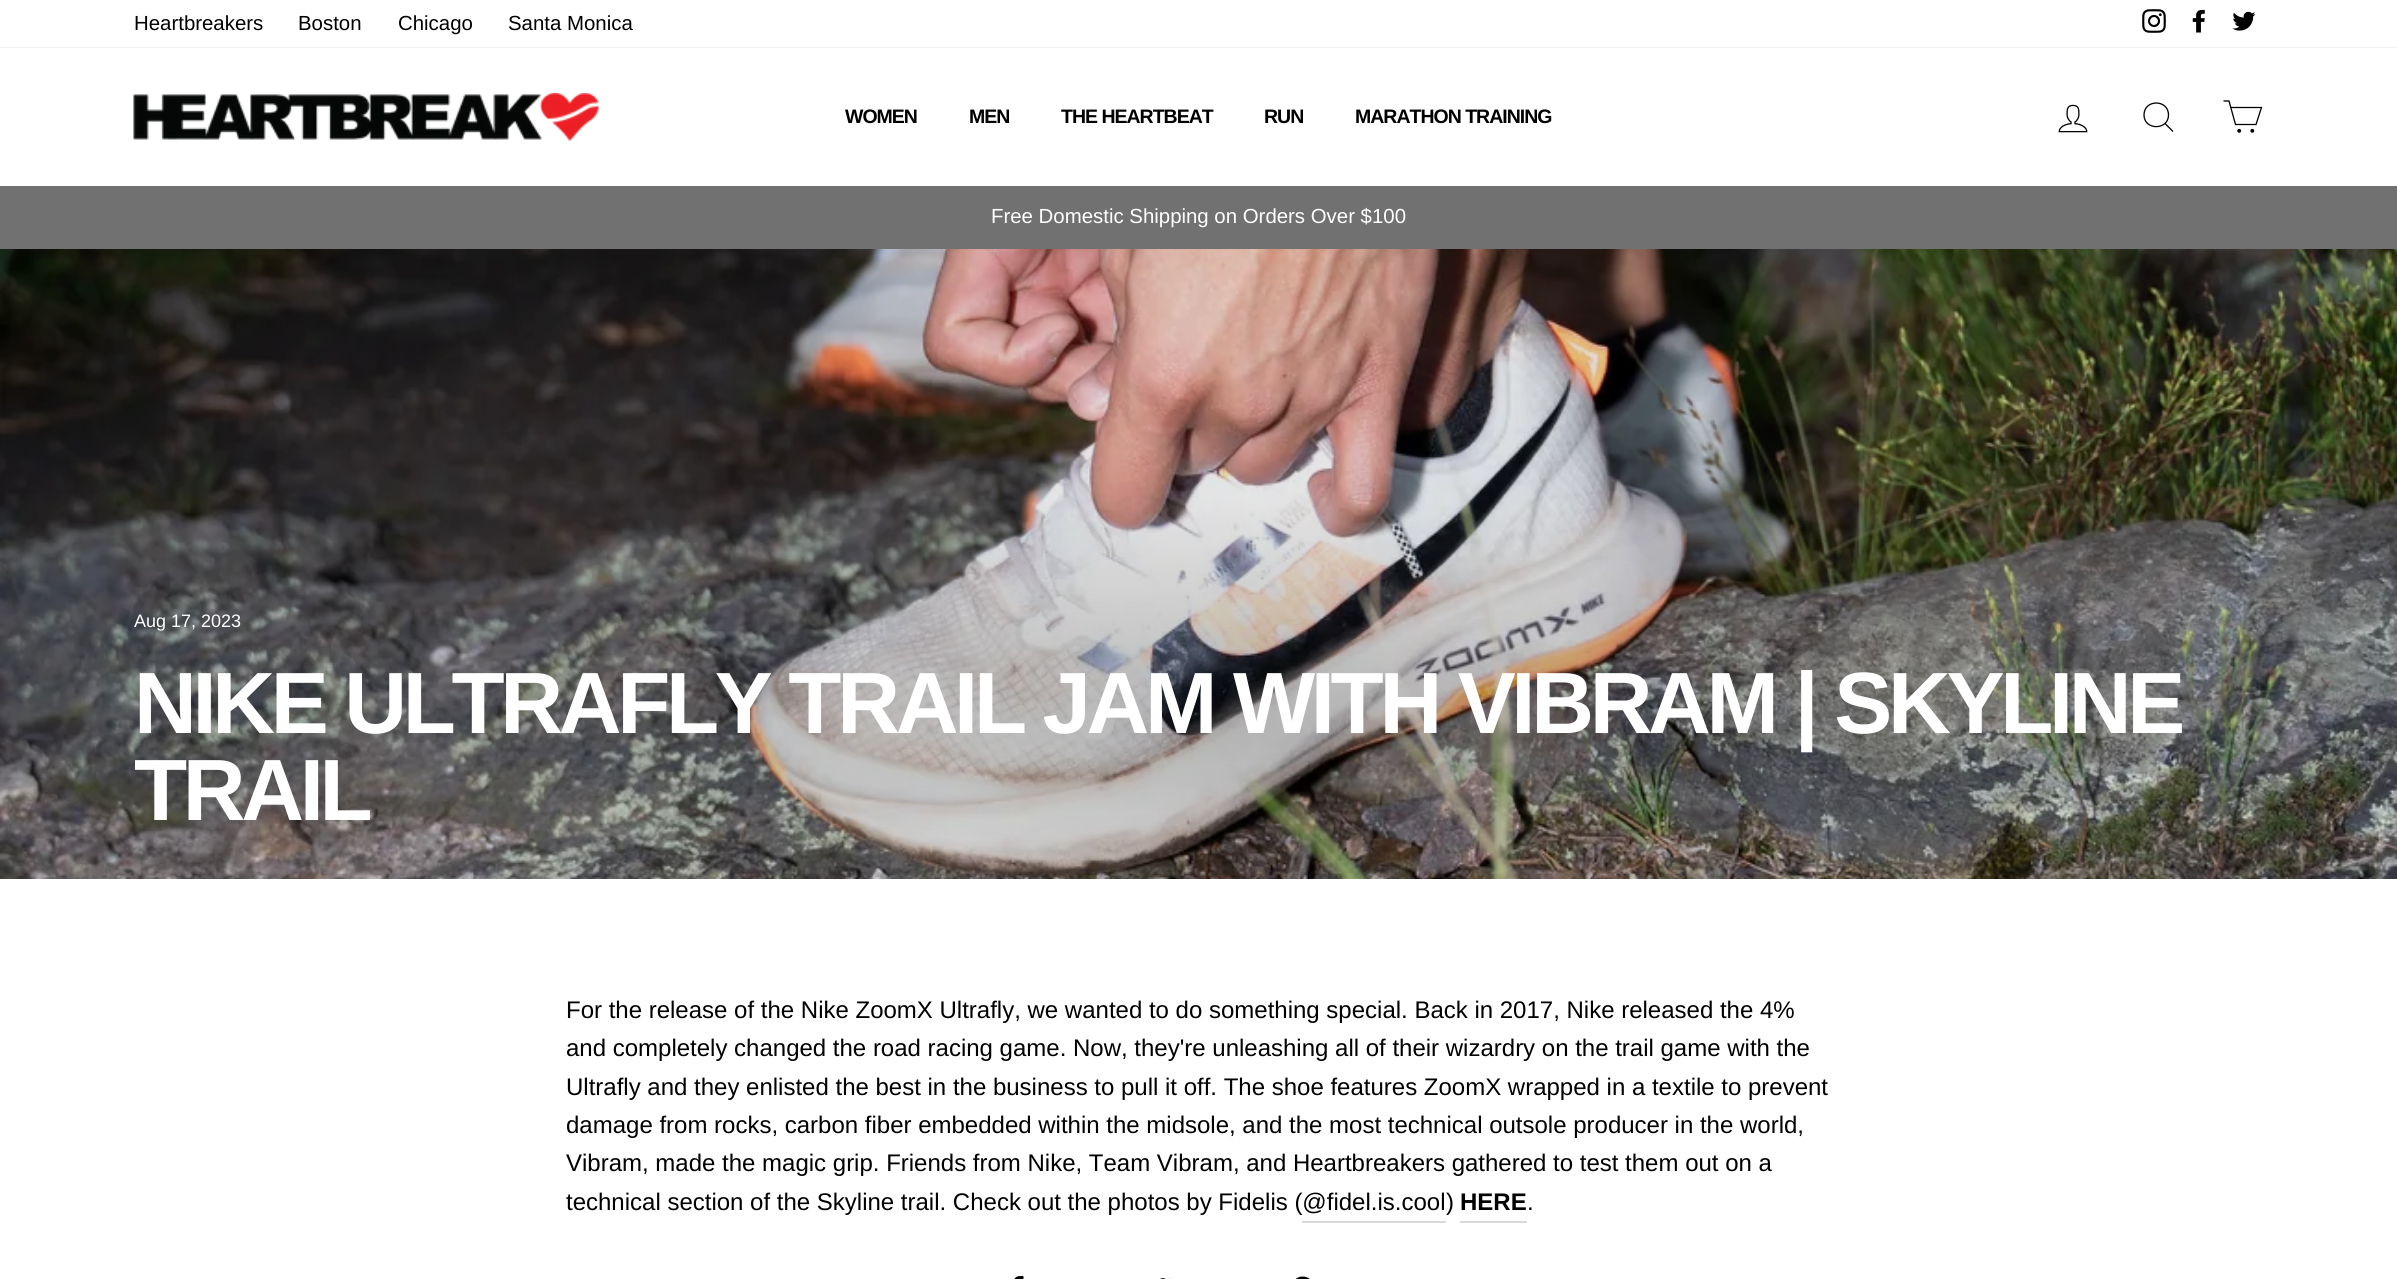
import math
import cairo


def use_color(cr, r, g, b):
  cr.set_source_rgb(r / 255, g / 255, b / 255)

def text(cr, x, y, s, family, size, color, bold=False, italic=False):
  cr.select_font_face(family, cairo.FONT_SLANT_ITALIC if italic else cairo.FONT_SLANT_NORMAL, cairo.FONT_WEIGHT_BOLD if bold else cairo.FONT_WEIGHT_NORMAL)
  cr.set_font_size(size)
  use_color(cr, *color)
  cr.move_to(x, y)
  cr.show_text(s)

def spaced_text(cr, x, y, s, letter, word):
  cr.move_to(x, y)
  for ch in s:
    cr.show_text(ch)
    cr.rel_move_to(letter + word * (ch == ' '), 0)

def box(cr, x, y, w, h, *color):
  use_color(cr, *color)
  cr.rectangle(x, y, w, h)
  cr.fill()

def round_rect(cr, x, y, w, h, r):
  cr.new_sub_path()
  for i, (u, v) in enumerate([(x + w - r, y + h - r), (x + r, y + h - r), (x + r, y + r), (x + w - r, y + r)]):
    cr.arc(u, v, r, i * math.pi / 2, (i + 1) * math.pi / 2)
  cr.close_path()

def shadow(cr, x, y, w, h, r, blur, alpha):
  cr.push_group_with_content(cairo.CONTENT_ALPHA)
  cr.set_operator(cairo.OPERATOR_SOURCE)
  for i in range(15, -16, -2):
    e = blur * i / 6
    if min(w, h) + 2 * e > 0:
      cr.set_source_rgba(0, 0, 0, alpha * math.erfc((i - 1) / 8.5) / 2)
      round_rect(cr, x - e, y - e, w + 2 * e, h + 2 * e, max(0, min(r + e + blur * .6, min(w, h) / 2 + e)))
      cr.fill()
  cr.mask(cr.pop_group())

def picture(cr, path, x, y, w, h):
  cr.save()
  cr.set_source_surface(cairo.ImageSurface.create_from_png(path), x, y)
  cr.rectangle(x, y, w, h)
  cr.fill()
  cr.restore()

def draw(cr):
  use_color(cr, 255, 255, 255)
  cr.paint()
  picture(cr, "img_01.png", 2142, 9, 24, 24)
  picture(cr, "img_02.png", 2192, 9, 13, 24)
  picture(cr, "img_03.png", 2232, 11, 24, 20)
  cr.save()
  cr.rectangle(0, 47, 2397, 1)
  cr.clip()
  use_color(cr, 0, 0, 0)
  shadow(cr, 0, 48, 2397, 138, 0, 1, 0.2)
  cr.restore()
  picture(cr, "img_04.png", 133, 93, 466, 48)
  picture(cr, "img_05.png", 2058, 104, 30, 29)
  cr.new_path()
  cr.move_to(2168.5, 115)
  cr.curve_to(2168.5, 130.5, 2144, 130.5, 2144, 115)
  cr.curve_to(2144, 99, 2168.5, 99, 2168.5, 115)
  cr.close_path()
  cr.move_to(2173, 131.5)
  cr.line_to(2165, 123.5)
  use_color(cr, 0, 0, 0)
  cr.set_line_width(1.3)
  cr.stroke()
  cr.new_path()
  cr.move_to(2230.5, 107.5)
  cr.line_to(2261.5, 107.5)
  cr.line_to(2256, 124.5)
  cr.line_to(2235.5, 124.5)
  cr.line_to(2229, 101)
  cr.line_to(2223.5, 101)
  cr.stroke()
  cr.arc(2239.2, 130.8, 1.3, 0, 2 * math.pi)
  cr.fill_preserve()
  cr.stroke()
  cr.arc(2252.3, 130.8, 1.3, 0, 2 * math.pi)
  cr.fill_preserve()
  cr.stroke()
  box(cr, 0, 186, 2397, 63, 113, 113, 113)
  picture(cr, "img_06.png", 0, 249, 2397, 630)
  box(cr, 1460, 1221, 67, 2, 217, 217, 217)
  box(cr, 1302, 1221, 144, 2, 217, 217, 217)
  picture(cr, "img_07.png", 1014, 1276, 10, 3)
  picture(cr, "img_08.png", 1160, 1278, 11, 1)
  picture(cr, "img_09.png", 1296, 1276, 14, 3)
  text(cr, 134, 30, "Heartbreakers", "Liberation Sans", 20.4, (0, 0, 0))
  text(cr, 298, 30, "Boston", "Liberation Sans", 20.4, (0, 0, 0))
  text(cr, 398, 30, "Chicago", "Liberation Sans", 20.4, (0, 0, 0))
  text(cr, 508, 30, "Santa Monica", "Liberation Sans", 20.4, (0, 0, 0))
  cr.select_font_face("Liberation Sans", cairo.FONT_SLANT_NORMAL, cairo.FONT_WEIGHT_BOLD)
  cr.set_font_size(19.5)
  spaced_text(cr, 845, 123, "WOMEN", -1, 0)
  spaced_text(cr, 969, 123, "MEN", -1, 0)
  spaced_text(cr, 1061, 123, "THE HEARTBEAT", -1, 0)
  spaced_text(cr, 1264, 123, "RUN", -1, 0)
  spaced_text(cr, 1355, 123, "MARATHON TRAINING", -1, 0)
  text(cr, 991, 223, "Free Domestic Shipping on Orders Over $100", "Liberation Sans", 20.4, (255, 255, 255))
  text(cr, 134, 627, "Aug 17, 2023", "Liberation Sans", 18, (255, 255, 255))
  cr.select_font_face("Liberation Sans", cairo.FONT_SLANT_NORMAL, cairo.FONT_WEIGHT_BOLD)
  cr.set_font_size(87)
  spaced_text(cr, 134, 733, "NIKE ULTRAFLY TRAIL JAM WITH VIBRAM | SKYLINE", -4.35, 0)
  spaced_text(cr, 134, 820, "TRAIL", -4.35, 0)
  text(cr, 566, 1018, "For the release of the Nike ZoomX Ultrafly, we wanted to do something special. Back in 2017, Nike released the 4%", "Liberation Sans", 24, (0, 0, 0))
  text(cr, 566, 1056, "and completely changed the road racing game. Now, they're unleashing all of their wizardry on the trail game with the", "Liberation Sans", 24, (0, 0, 0))
  text(cr, 566, 1095, "Ultrafly and they enlisted the best in the business to pull it off. The shoe features ZoomX wrapped in a textile to prevent", "Liberation Sans", 24, (0, 0, 0))
  text(cr, 566, 1133, "damage from rocks, carbon fiber embedded within the midsole, and the most technical outsole producer in the world,", "Liberation Sans", 24, (0, 0, 0))
  text(cr, 566, 1171, "Vibram, made the magic grip. Friends from Nike, Team Vibram, and Heartbreakers gathered to test them out on a", "Liberation Sans", 24, (0, 0, 0))
  text(cr, 566, 1210, "technical section of the Skyline trail. Check out the photos by Fidelis (@fidel.is.cool", "Liberation Sans", 24, (0, 0, 0))
  text(cr, 1446, 1210, ")", "Liberation Sans", 24, (0, 0, 0))
  text(cr, 1460, 1210, "HERE", "Liberation Sans", 24, (0, 0, 0), bold=True)
  text(cr, 1527, 1210, ".", "Liberation Sans", 24, (0, 0, 0))


surface = cairo.ImageSurface(cairo.FORMAT_RGB24, 2397, 1279)
cr = cairo.Context(surface)
options = cairo.FontOptions()
options.set_hint_metrics(cairo.HINT_METRICS_OFF)
options.set_hint_style(cairo.HINT_STYLE_NONE)
cr.set_font_options(options)
cr.set_miter_limit(4)
draw(cr)
surface.write_to_png("out.png")
